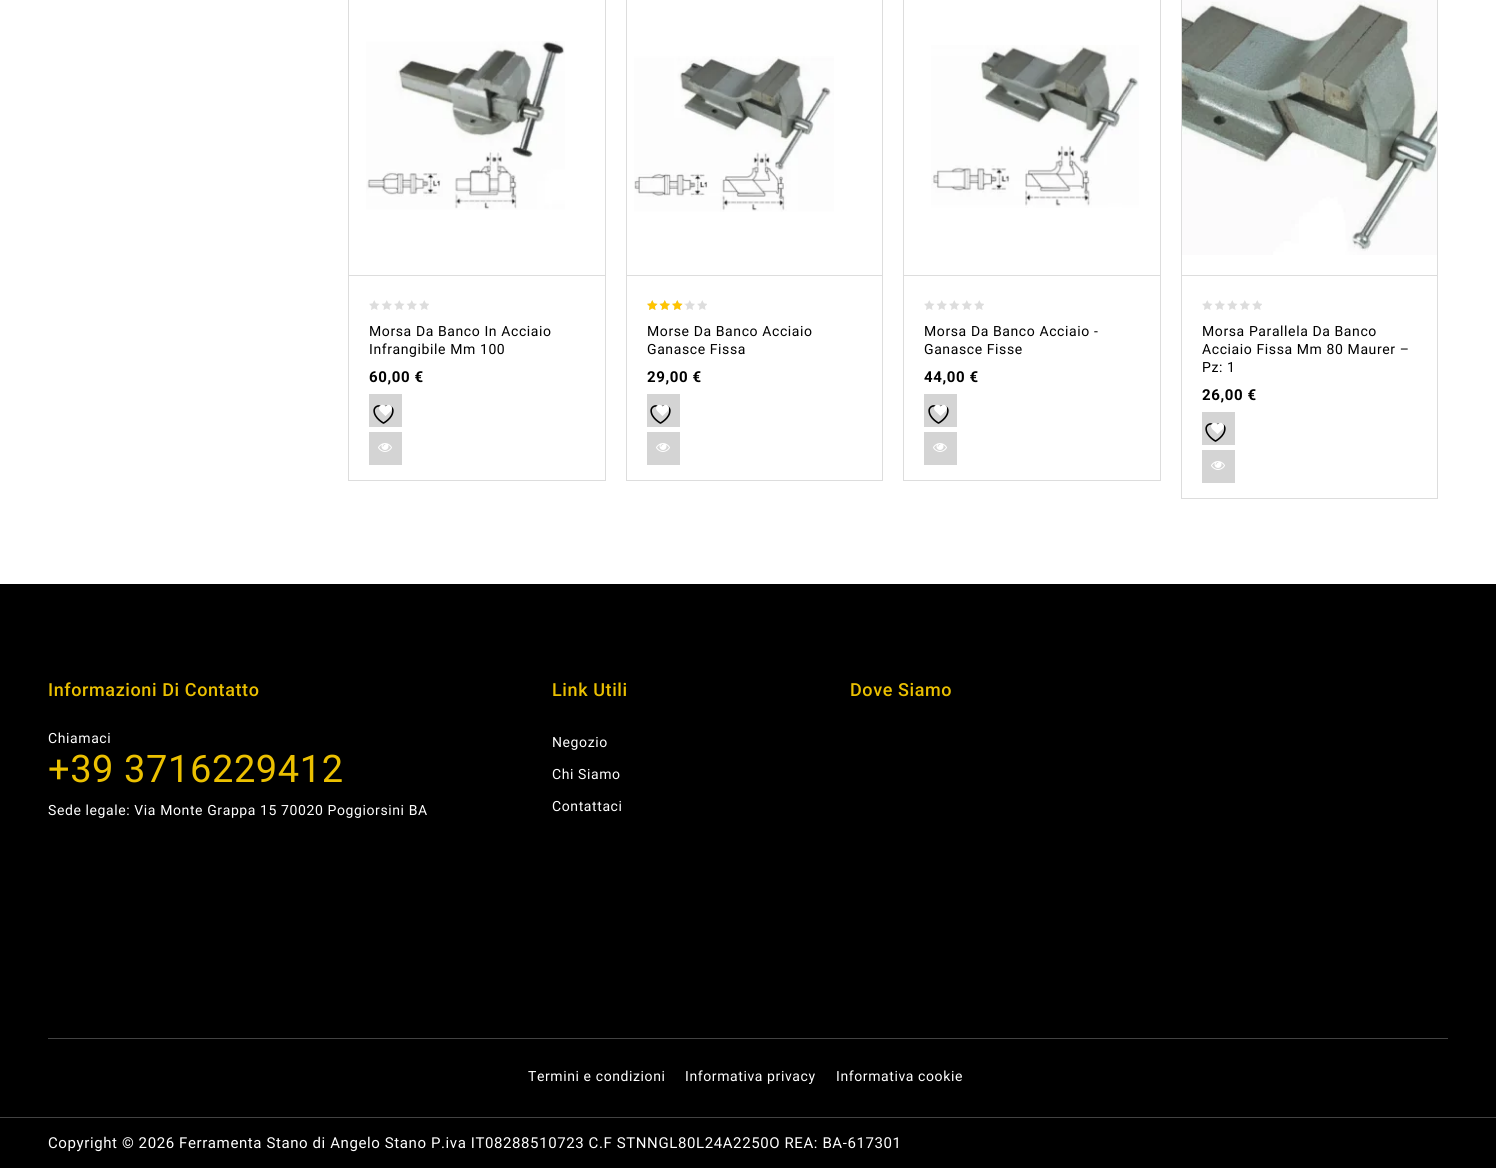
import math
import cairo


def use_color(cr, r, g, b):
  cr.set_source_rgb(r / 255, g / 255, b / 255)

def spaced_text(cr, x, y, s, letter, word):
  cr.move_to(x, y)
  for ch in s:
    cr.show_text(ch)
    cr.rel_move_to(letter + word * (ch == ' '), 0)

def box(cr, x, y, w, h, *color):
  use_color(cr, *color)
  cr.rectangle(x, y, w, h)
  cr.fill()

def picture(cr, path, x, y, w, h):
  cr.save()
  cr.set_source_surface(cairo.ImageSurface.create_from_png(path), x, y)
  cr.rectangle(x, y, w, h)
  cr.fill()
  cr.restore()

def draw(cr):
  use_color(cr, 255, 255, 255)
  cr.paint()
  cr.rectangle(348.5, -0.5, 257, 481)
  use_color(cr, 221, 221, 221)
  cr.set_line_width(1)
  cr.stroke()
  picture(cr, "img_01.png", 366, 41, 199, 169)
  box(cr, 349, 275, 256, 1, 221, 221, 221)
  picture(cr, "img_02.png", 369, 300, 60, 10)
  box(cr, 369, 394, 33, 33, 212, 212, 212)
  picture(cr, "img_04.png", 373, 405, 21, 19)
  picture(cr, "img_03.png", 379, 404, 13, 12)
  box(cr, 369, 432, 33, 33, 212, 212, 212)
  picture(cr, "img_05.png", 378, 443, 14, 9)
  cr.rectangle(626.5, -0.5, 256, 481)
  use_color(cr, 221, 221, 221)
  cr.stroke()
  picture(cr, "img_06.png", 634, 56, 200, 156)
  box(cr, 627, 275, 255, 1, 221, 221, 221)
  picture(cr, "img_02.png", 647, 300, 60, 10)
  picture(cr, "img_07.png", 647, 300, 38, 10)
  box(cr, 647, 394, 33, 33, 212, 212, 212)
  picture(cr, "img_04.png", 650, 405, 21, 19)
  picture(cr, "img_03.png", 656, 404, 13, 12)
  box(cr, 647, 432, 33, 33, 212, 212, 212)
  picture(cr, "img_05.png", 656, 443, 14, 9)
  cr.rectangle(903.5, -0.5, 257, 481)
  use_color(cr, 221, 221, 221)
  cr.stroke()
  picture(cr, "img_08.png", 931, 45, 208, 163)
  box(cr, 904, 275, 256, 1, 221, 221, 221)
  picture(cr, "img_02.png", 924, 300, 60, 10)
  box(cr, 924, 394, 33, 33, 212, 212, 212)
  picture(cr, "img_04.png", 928, 405, 21, 19)
  picture(cr, "img_03.png", 934, 404, 13, 12)
  box(cr, 924, 432, 33, 33, 212, 212, 212)
  picture(cr, "img_05.png", 933, 443, 14, 9)
  cr.rectangle(1181.5, -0.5, 256, 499)
  use_color(cr, 221, 221, 221)
  cr.stroke()
  picture(cr, "img_09.png", 1182, 0, 255, 255)
  box(cr, 1182, 275, 255, 1, 221, 221, 221)
  picture(cr, "img_02.png", 1202, 300, 60, 10)
  box(cr, 1202, 412, 33, 33, 212, 212, 212)
  picture(cr, "img_04.png", 1205, 423, 21, 19)
  picture(cr, "img_03.png", 1211, 422, 13, 12)
  box(cr, 1202, 450, 33, 33, 212, 212, 212)
  picture(cr, "img_05.png", 1211, 461, 14, 9)
  box(cr, 0, 584, 1496, 584, 0, 0, 0)
  box(cr, 48, 1038, 1400, 1, 66, 66, 66)
  box(cr, 0, 1117, 1496, 1, 66, 66, 66)
  cr.select_font_face("Roboto")
  cr.set_font_size(14)
  use_color(cr, 0, 0, 0)
  spaced_text(cr, 369, 336, "Morsa Da Banco In Acciaio", 0.6, 0)
  spaced_text(cr, 369, 354, "Infrangibile Mm 100", 0.6, 0)
  cr.select_font_face("Roboto", cairo.FONT_SLANT_NORMAL, cairo.FONT_WEIGHT_BOLD)
  cr.set_font_size(15)
  spaced_text(cr, 369, 382, "60,00 €", 0.6, 0)
  cr.select_font_face("Roboto")
  cr.set_font_size(14)
  spaced_text(cr, 647, 336, "Morse Da Banco Acciaio", 0.6, 0)
  spaced_text(cr, 647, 354, "Ganasce Fissa", 0.6, 0)
  cr.select_font_face("Roboto", cairo.FONT_SLANT_NORMAL, cairo.FONT_WEIGHT_BOLD)
  cr.set_font_size(15)
  spaced_text(cr, 647, 382, "29,00 €", 0.6, 0)
  cr.select_font_face("Roboto")
  cr.set_font_size(14)
  spaced_text(cr, 924, 336, "Morsa Da Banco Acciaio -", 0.6, 0)
  spaced_text(cr, 924, 354, "Ganasce Fisse", 0.6, 0)
  cr.select_font_face("Roboto", cairo.FONT_SLANT_NORMAL, cairo.FONT_WEIGHT_BOLD)
  cr.set_font_size(15)
  spaced_text(cr, 924, 382, "44,00 €", 0.6, 0)
  cr.select_font_face("Roboto")
  cr.set_font_size(14)
  spaced_text(cr, 1202, 336, "Morsa Parallela Da Banco", 0.6, 0)
  spaced_text(cr, 1202, 354, "Acciaio Fissa Mm 80 Maurer –", 0.6, 0)
  spaced_text(cr, 1202, 372, "Pz: 1", 0.6, 0)
  cr.select_font_face("Roboto", cairo.FONT_SLANT_NORMAL, cairo.FONT_WEIGHT_BOLD)
  cr.set_font_size(15)
  spaced_text(cr, 1202, 400, "26,00 €", 0.6, 0)
  cr.select_font_face("Roboto Medium")
  cr.set_font_size(18)
  use_color(cr, 235, 192, 0)
  spaced_text(cr, 48, 696, "Informazioni Di Contatto", 0.6, 0)
  cr.select_font_face("Roboto")
  cr.set_font_size(14)
  use_color(cr, 255, 255, 255)
  spaced_text(cr, 48, 743, "Chiamaci", 0.6, 0)
  cr.set_font_size(38)
  use_color(cr, 235, 192, 0)
  spaced_text(cr, 48, 782, "+39 3716229412", 0.6, 0)
  cr.set_font_size(14)
  use_color(cr, 255, 255, 255)
  spaced_text(cr, 48, 815, "Sede legale: Via Monte Grappa 15 70020 Poggiorsini BA", 0.6, 0)
  cr.select_font_face("Roboto Medium")
  cr.set_font_size(18)
  use_color(cr, 235, 192, 0)
  spaced_text(cr, 552, 696, "Link Utili", 0.6, 0)
  cr.select_font_face("Roboto")
  cr.set_font_size(14)
  use_color(cr, 255, 255, 255)
  spaced_text(cr, 552, 747, "Negozio", 0.6, 0)
  spaced_text(cr, 552, 779, "Chi Siamo", 0.6, 0)
  spaced_text(cr, 552, 811, "Contattaci", 0.6, 0)
  cr.select_font_face("Roboto Medium")
  cr.set_font_size(18)
  use_color(cr, 235, 192, 0)
  spaced_text(cr, 850, 696, "Dove Siamo", 0.6, 0)
  cr.select_font_face("Roboto")
  cr.set_font_size(14)
  use_color(cr, 255, 255, 255)
  spaced_text(cr, 528, 1081, "Termini e condizioni", 0.6, 0)
  spaced_text(cr, 685, 1081, "Informativa privacy", 0.6, 0)
  spaced_text(cr, 836, 1081, "Informativa cookie", 0.6, 0)
  cr.set_font_size(15)
  spaced_text(cr, 48, 1148, "Copyright © 2026 Ferramenta Stano di Angelo Stano P.iva IT08288510723 C.F STNNGL80L24A2250O REA: BA-617301", 0.6, 0)


surface = cairo.ImageSurface(cairo.FORMAT_RGB24, 1496, 1168)
cr = cairo.Context(surface)
options = cairo.FontOptions()
options.set_hint_metrics(cairo.HINT_METRICS_OFF)
options.set_hint_style(cairo.HINT_STYLE_NONE)
cr.set_font_options(options)
cr.set_miter_limit(4)
draw(cr)
surface.write_to_png("out.png")
